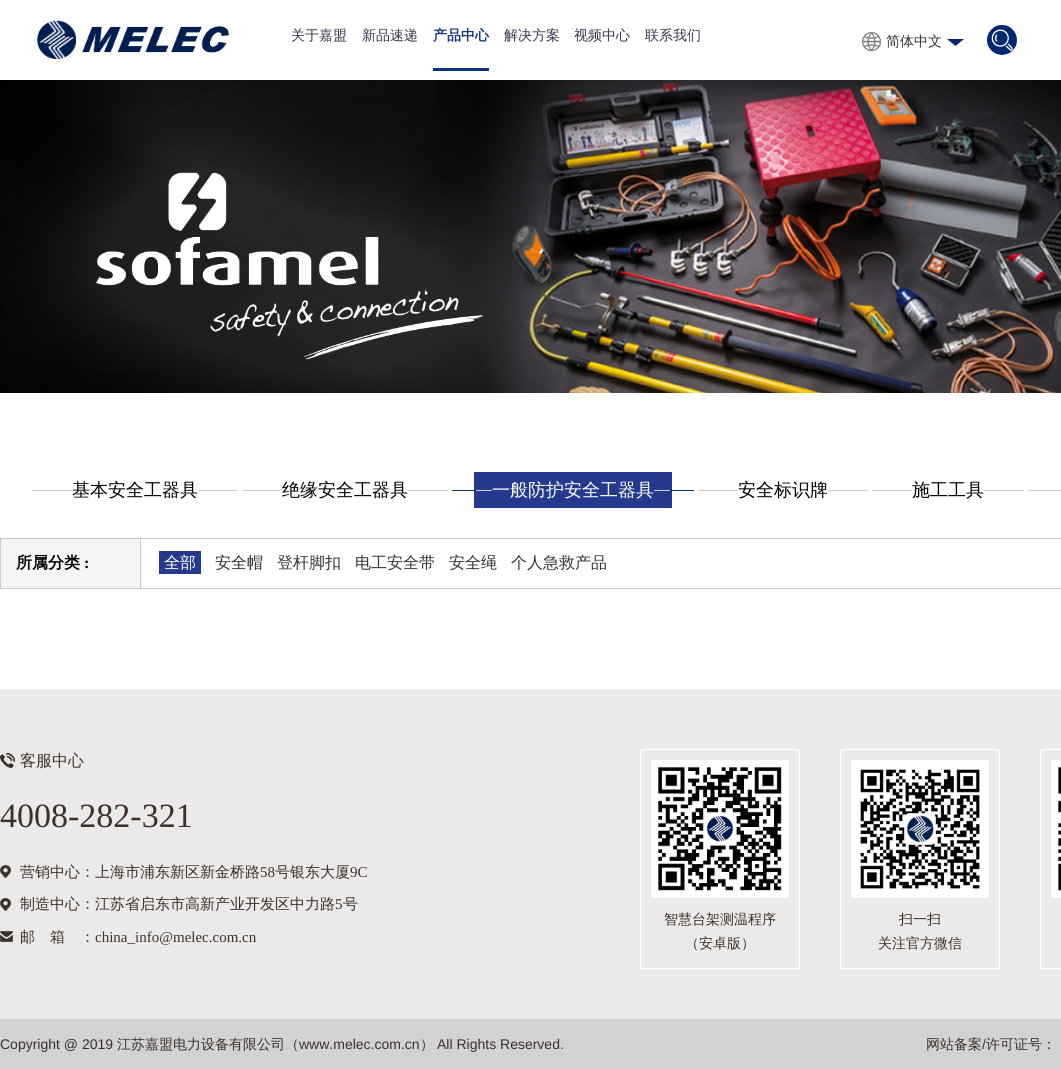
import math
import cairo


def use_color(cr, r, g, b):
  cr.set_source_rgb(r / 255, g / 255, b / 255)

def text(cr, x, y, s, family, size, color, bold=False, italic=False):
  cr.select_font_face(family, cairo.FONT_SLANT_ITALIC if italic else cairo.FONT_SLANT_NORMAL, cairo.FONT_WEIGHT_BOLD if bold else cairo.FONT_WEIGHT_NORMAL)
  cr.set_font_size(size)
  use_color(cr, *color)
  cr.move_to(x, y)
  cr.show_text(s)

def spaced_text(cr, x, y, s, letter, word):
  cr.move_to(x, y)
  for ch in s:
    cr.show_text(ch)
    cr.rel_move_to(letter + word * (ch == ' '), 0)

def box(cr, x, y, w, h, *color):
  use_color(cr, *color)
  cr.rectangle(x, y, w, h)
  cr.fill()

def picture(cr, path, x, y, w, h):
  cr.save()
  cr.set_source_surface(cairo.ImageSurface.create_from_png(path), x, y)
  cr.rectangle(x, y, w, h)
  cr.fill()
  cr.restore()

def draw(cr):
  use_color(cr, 255, 255, 255)
  cr.paint()
  picture(cr, "img_01.png", 37, 20, 192, 39)
  box(cr, 433, 68, 56, 3, 12, 51, 127)
  picture(cr, "img_02.png", 862, 32, 19, 20)
  picture(cr, "img_03.png", 947, 39, 17, 7)
  picture(cr, "img_04.png", 987, 25, 30, 30)
  picture(cr, "img_05.png", 0, 80, 1061, 313)
  box(cr, 32, 490, 40, 1, 207, 207, 207)
  box(cr, 198, 490, 40, 1, 207, 207, 207)
  box(cr, 242, 490, 40, 1, 207, 207, 207)
  box(cr, 408, 490, 40, 1, 207, 207, 207)
  box(cr, 474, 472, 198, 36, 37, 57, 142)
  box(cr, 476, 490, 16, 1, 207, 207, 207)
  box(cr, 452, 490, 24, 1, 3, 53, 114)
  box(cr, 654, 490, 16, 1, 207, 207, 207)
  box(cr, 670, 490, 24, 1, 3, 53, 114)
  box(cr, 698, 490, 40, 1, 207, 207, 207)
  box(cr, 828, 490, 40, 1, 207, 207, 207)
  box(cr, 872, 490, 40, 1, 207, 207, 207)
  box(cr, 984, 490, 40, 1, 207, 207, 207)
  box(cr, 1028, 490, 33, 1, 207, 207, 207)
  box(cr, 0, 538, 1061, 1, 201, 201, 201)
  box(cr, 0, 588, 1061, 1, 201, 201, 201)
  box(cr, 0, 538, 1, 51, 201, 201, 201)
  box(cr, 1, 539, 139, 49, 245, 245, 245)
  box(cr, 140, 538, 1, 51, 201, 201, 201)
  box(cr, 159, 551, 42, 23, 37, 57, 142)
  box(cr, 0, 689, 1061, 330, 235, 234, 233)
  picture(cr, "img_06.png", 0, 753, 15, 15)
  picture(cr, "img_07.png", 0, 865, 11, 13)
  picture(cr, "img_07.png", 0, 898, 11, 13)
  picture(cr, "img_08.png", 0, 931, 13, 11)
  cr.rectangle(640.5, 749.5, 159, 219)
  use_color(cr, 255, 255, 255)
  cr.set_line_width(1)
  cr.stroke()
  picture(cr, "img_09.png", 651, 760, 138, 138)
  cr.rectangle(840.5, 749.5, 159, 219)
  cr.stroke()
  picture(cr, "img_10.png", 851, 760, 138, 138)
  cr.rectangle(1040.5, 749.5, 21, 219)
  cr.stroke()
  picture(cr, "img_11.png", 1051, 760, 10, 138)
  box(cr, 0, 1019, 1061, 50, 210, 210, 210)
  text(cr, 291, 40, "关于嘉盟", "WenQuanYi Zen Hei Medium", 14, (52, 54, 75))
  text(cr, 362, 40, "新品速递", "WenQuanYi Zen Hei Medium", 14, (52, 54, 75))
  text(cr, 433, 40, "产品中心", "WenQuanYi Zen Hei", 14, (12, 51, 127), bold=True)
  text(cr, 504, 40, "解决方案", "WenQuanYi Zen Hei Medium", 14, (52, 54, 75))
  text(cr, 574, 40, "视频中心", "WenQuanYi Zen Hei Medium", 14, (52, 54, 75))
  text(cr, 645, 40, "联系我们", "WenQuanYi Zen Hei Medium", 14, (52, 54, 75))
  text(cr, 886, 46, "简体中文", "WenQuanYi Zen Hei Medium", 14, (51, 51, 51))
  text(cr, 72, 496, "基本安全工器具", "WenQuanYi Zen Hei Medium", 18, (0, 0, 0))
  text(cr, 282, 496, "绝缘安全工器具", "WenQuanYi Zen Hei Medium", 18, (0, 0, 0))
  text(cr, 492, 496, "一般防护安全工器具", "WenQuanYi Zen Hei Medium", 18, (255, 255, 255))
  text(cr, 738, 496, "安全标识牌", "WenQuanYi Zen Hei Medium", 18, (0, 0, 0))
  text(cr, 912, 496, "施工工具", "WenQuanYi Zen Hei Medium", 18, (0, 0, 0))
  text(cr, 16, 568, "所属分类", "WenQuanYi Zen Hei", 16, (0, 0, 0), bold=True)
  text(cr, 84, 568, ":", "Liberation Serif", 16, (0, 0, 0), bold=True)
  text(cr, 164, 568, "全部", "WenQuanYi Zen Hei Medium", 16, (255, 255, 255))
  text(cr, 215, 568, "安全帽", "WenQuanYi Zen Hei Medium", 16, (51, 51, 51))
  text(cr, 277, 568, "登杆脚扣", "WenQuanYi Zen Hei Medium", 16, (51, 51, 51))
  text(cr, 355, 568, "电工安全带", "WenQuanYi Zen Hei Medium", 16, (51, 51, 51))
  text(cr, 449, 568, "安全绳", "WenQuanYi Zen Hei Medium", 16, (51, 51, 51))
  text(cr, 511, 568, "个人急救产品", "WenQuanYi Zen Hei Medium", 16, (51, 51, 51))
  text(cr, 20, 766, "客服中心", "WenQuanYi Zen Hei Medium", 16, (59, 49, 44))
  text(cr, 0, 827, "4008-282-321", "Liberation Serif", 34, (59, 49, 44))
  text(cr, 20, 877, "营销中心：上海市浦东新区新金桥路", "WenQuanYi Zen Hei Medium", 15, (59, 49, 44))
  text(cr, 260, 877, "58", "Liberation Serif", 15, (59, 49, 44))
  text(cr, 275, 877, "号银东大厦", "WenQuanYi Zen Hei Medium", 15, (59, 49, 44))
  text(cr, 350, 877, "9C", "Liberation Serif", 15, (59, 49, 44))
  text(cr, 20, 909, "制造中心：江苏省启东市高新产业开发区中力路", "WenQuanYi Zen Hei Medium", 15, (59, 49, 44))
  text(cr, 335, 909, "5", "Liberation Serif", 15, (59, 49, 44))
  text(cr, 343, 909, "号", "WenQuanYi Zen Hei Medium", 15, (59, 49, 44))
  spaced_text(cr, 20, 942, "邮箱", 15, 0)
  text(cr, 80, 942, "：", "WenQuanYi Zen Hei Medium", 15, (59, 49, 44))
  text(cr, 95, 942, "china_info@melec.com.cn", "Liberation Serif", 15, (59, 49, 44))
  text(cr, 664, 924, "智慧台架测温程序", "WenQuanYi Zen Hei Medium", 14, (59, 49, 44))
  text(cr, 685, 948, "（安卓版）", "WenQuanYi Zen Hei Medium", 14, (59, 49, 44))
  text(cr, 899, 924, "扫一扫", "WenQuanYi Zen Hei Medium", 14, (59, 49, 44))
  text(cr, 878, 948, "关注官方微信", "WenQuanYi Zen Hei Medium", 14, (59, 49, 44))
  text(cr, 0, 1049, "Copyright @ 2019", "Liberation Sans", 14, (59, 49, 44))
  text(cr, 117, 1049, "江苏嘉盟电力设备有限公司（", "WenQuanYi Zen Hei Medium", 14, (59, 49, 44))
  text(cr, 299, 1049, "www.melec.com.cn", "Liberation Sans", 14, (59, 49, 44))
  text(cr, 420, 1049, "）", "WenQuanYi Zen Hei Medium", 14, (59, 49, 44))
  text(cr, 437, 1049, "All Rights Reserved.", "Liberation Sans", 14, (59, 49, 44))
  text(cr, 926, 1049, "网站备案", "WenQuanYi Zen Hei Medium", 14, (59, 49, 44))
  text(cr, 982, 1049, "/", "Liberation Sans", 14, (59, 49, 44))
  text(cr, 986, 1049, "许可证号：", "WenQuanYi Zen Hei Medium", 14, (59, 49, 44))


surface = cairo.ImageSurface(cairo.FORMAT_RGB24, 1061, 1069)
cr = cairo.Context(surface)
options = cairo.FontOptions()
options.set_hint_metrics(cairo.HINT_METRICS_OFF)
options.set_hint_style(cairo.HINT_STYLE_NONE)
cr.set_font_options(options)
cr.set_miter_limit(4)
draw(cr)
surface.write_to_png("out.png")
